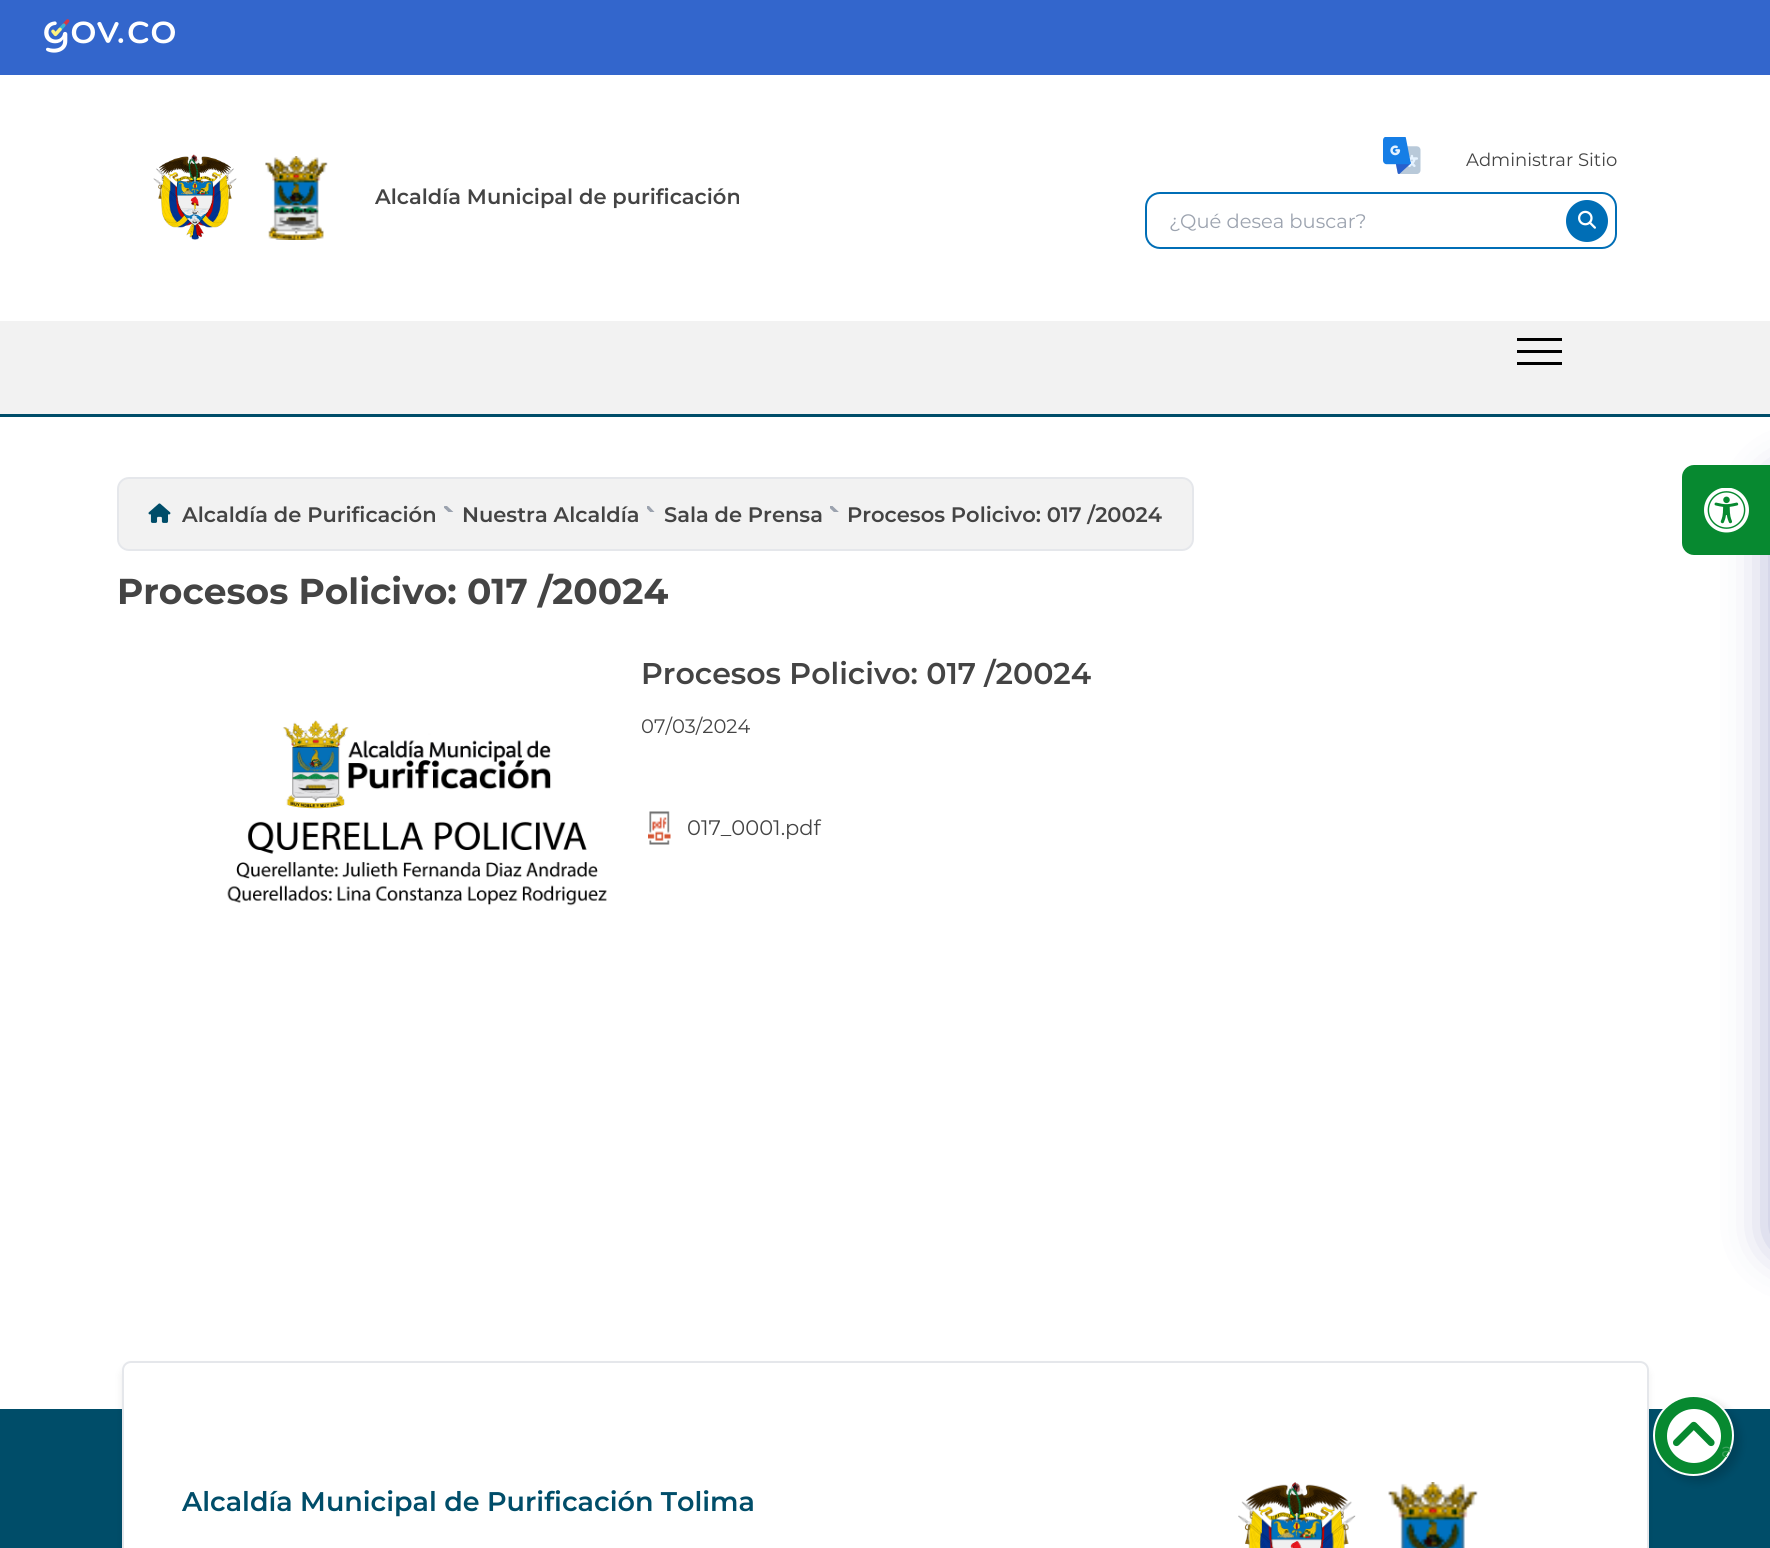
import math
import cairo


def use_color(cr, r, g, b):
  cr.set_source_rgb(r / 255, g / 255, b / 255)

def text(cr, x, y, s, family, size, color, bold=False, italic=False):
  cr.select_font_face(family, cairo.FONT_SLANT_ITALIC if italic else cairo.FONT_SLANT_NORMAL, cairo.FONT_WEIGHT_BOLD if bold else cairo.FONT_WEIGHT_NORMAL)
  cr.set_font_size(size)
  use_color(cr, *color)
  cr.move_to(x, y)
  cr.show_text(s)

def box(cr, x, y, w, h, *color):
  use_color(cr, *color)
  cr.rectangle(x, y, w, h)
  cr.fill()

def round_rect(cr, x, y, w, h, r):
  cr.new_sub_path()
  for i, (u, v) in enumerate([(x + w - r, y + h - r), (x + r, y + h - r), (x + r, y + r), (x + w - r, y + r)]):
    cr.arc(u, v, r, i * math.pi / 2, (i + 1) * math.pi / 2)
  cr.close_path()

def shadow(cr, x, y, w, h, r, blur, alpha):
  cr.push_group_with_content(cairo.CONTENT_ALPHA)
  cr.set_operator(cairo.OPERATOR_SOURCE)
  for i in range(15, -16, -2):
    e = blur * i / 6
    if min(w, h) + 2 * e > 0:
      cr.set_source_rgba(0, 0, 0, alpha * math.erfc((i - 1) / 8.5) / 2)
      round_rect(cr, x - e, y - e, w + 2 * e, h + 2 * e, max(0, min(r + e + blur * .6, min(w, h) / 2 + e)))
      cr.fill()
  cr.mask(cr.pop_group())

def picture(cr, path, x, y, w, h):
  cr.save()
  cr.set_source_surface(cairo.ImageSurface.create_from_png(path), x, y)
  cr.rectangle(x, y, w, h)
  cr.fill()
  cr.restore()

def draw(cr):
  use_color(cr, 255, 255, 255)
  cr.paint()
  box(cr, 0, 0, 1770, 75, 51, 102, 204)
  picture(cr, "img_01.png", 44, 19, 131, 34)
  picture(cr, "img_02.png", 153, 154, 84, 86)
  picture(cr, "img_03.png", 265, 156, 63, 84)
  picture(cr, "img_04.png", 1383, 137, 38, 37)
  round_rect(cr, 1146, 193, 470, 55, 14)
  use_color(cr, 0, 110, 182)
  cr.stroke()
  cr.arc(1587, 221, 21, 0, 2 * math.pi)
  cr.fill()
  picture(cr, "img_05.png", 1578, 210, 18, 19)
  box(cr, 0, 321, 1770, 93, 242, 242, 242)
  box(cr, 0, 414, 1770, 3, 0, 77, 105)
  box(cr, 1517, 338, 45, 3, 0, 0, 0)
  box(cr, 1517, 350, 45, 3, 0, 0, 0)
  box(cr, 1517, 362, 45, 3, 0, 0, 0)
  use_color(cr, 242, 242, 242)
  round_rect(cr, 118, 478, 1075, 72, 11)
  cr.fill_preserve()
  use_color(cr, 229, 231, 235)
  cr.stroke()
  picture(cr, "img_06.png", 148, 503, 23, 20)
  picture(cr, "img_07.png", 444, 506, 10, 6)
  picture(cr, "img_08.png", 647, 506, 8, 6)
  picture(cr, "img_09.png", 830, 506, 9, 6)
  picture(cr, "img_10.png", 227, 720, 380, 186)
  picture(cr, "img_11.png", 648, 811, 23, 34)
  box(cr, 0, 1409, 1770, 139, 0, 77, 105)
  use_color(cr, 0, 0, 0)
  shadow(cr, 123, 1368, 1524, 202, 8, 4.5, 0.1)
  use_color(cr, 255, 255, 255)
  cr.new_path()
  cr.move_to(131, 1361)
  cr.line_to(1640, 1361)
  cr.curve_to(1645, 1361, 1649, 1365, 1649, 1370)
  cr.line_to(1649, 1548)
  cr.line_to(122, 1548)
  cr.line_to(122, 1370)
  cr.curve_to(122, 1365, 126, 1361, 131, 1361)
  cr.close_path()
  cr.fill()
  round_rect(cr, 123, 1362, 1525, 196, 8)
  use_color(cr, 229, 231, 235)
  cr.stroke()
  picture(cr, "img_12.png", 1238, 1482, 118, 66)
  picture(cr, "img_13.png", 1388, 1482, 90, 66)
  use_color(cr, 31, 38, 135)
  shadow(cr, 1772, 477, 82, 773, 12, 24, 0.37)
  use_color(cr, 7, 137, 48)
  cr.new_path()
  cr.move_to(1694, 465)
  cr.line_to(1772, 465)
  cr.line_to(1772, 555)
  cr.line_to(1694, 555)
  cr.curve_to(1687.5, 555, 1682, 549.5, 1682, 543)
  cr.line_to(1682, 477)
  cr.curve_to(1682, 470.5, 1687.5, 465, 1694, 465)
  cr.close_path()
  cr.fill()
  picture(cr, "img_14.png", 1704, 488, 45, 45)
  use_color(cr, 0, 0, 0)
  shadow(cr, 1659, 1401, 81, 81, 40.5, 4.5, 0.16)
  use_color(cr, 7, 137, 48)
  cr.arc(1693.5, 1435.5, 39.5, 0, 2 * math.pi)
  cr.fill_preserve()
  use_color(cr, 255, 255, 255)
  cr.stroke()
  cr.arc(1694, 1436, 27, 0, 2 * math.pi)
  cr.fill()
  picture(cr, "img_15.png", 1673, 1421, 42, 26)
  text(cr, 375, 204, "Alcaldía Municipal de purificación", "Montserrat SemiBold", 21, (68, 68, 68))
  text(cr, 1466, 166, "Administrar Sitio", "Montserrat", 18, (68, 68, 68))
  text(cr, 1169, 228, "¿Qué desea buscar?", "Montserrat", 19.5, (156, 163, 175))
  text(cr, 182, 522, "Alcaldía de Purificación", "Montserrat SemiBold", 21, (68, 68, 68))
  text(cr, 462, 522, "Nuestra Alcaldía", "Montserrat SemiBold", 21, (68, 68, 68))
  text(cr, 664, 522, "Sala de Prensa", "Montserrat SemiBold", 21, (68, 68, 68))
  text(cr, 847, 522, "Procesos Policivo: 017 /20024", "Montserrat SemiBold", 21, (68, 68, 68))
  text(cr, 117, 604, "Procesos Policivo: 017 /20024", "Montserrat", 36, (68, 68, 68), bold=True)
  text(cr, 641, 684, "Procesos Policivo: 017 /20024", "Montserrat SemiBold", 30, (68, 68, 68))
  text(cr, 641, 733, "07/03/2024", "Montserrat", 19.5, (68, 68, 68))
  text(cr, 687, 835, "017_0001.pdf", "Montserrat", 21, (68, 68, 68))
  text(cr, 182, 1511, "Alcaldía Municipal de Purificación Tolima", "Montserrat SemiBold", 27, (0, 77, 105))
  cr.save()
  round_rect(cr, 1655, 1397, 78, 78, 39)
  cr.clip()
  text(cr, 1721, 1457, "a", "Montserrat", 19.5, (62, 163, 94))
  cr.restore()


surface = cairo.ImageSurface(cairo.FORMAT_RGB24, 1770, 1548)
cr = cairo.Context(surface)
options = cairo.FontOptions()
options.set_hint_metrics(cairo.HINT_METRICS_OFF)
options.set_hint_style(cairo.HINT_STYLE_NONE)
cr.set_font_options(options)
cr.set_miter_limit(4)
draw(cr)
surface.write_to_png("out.png")
